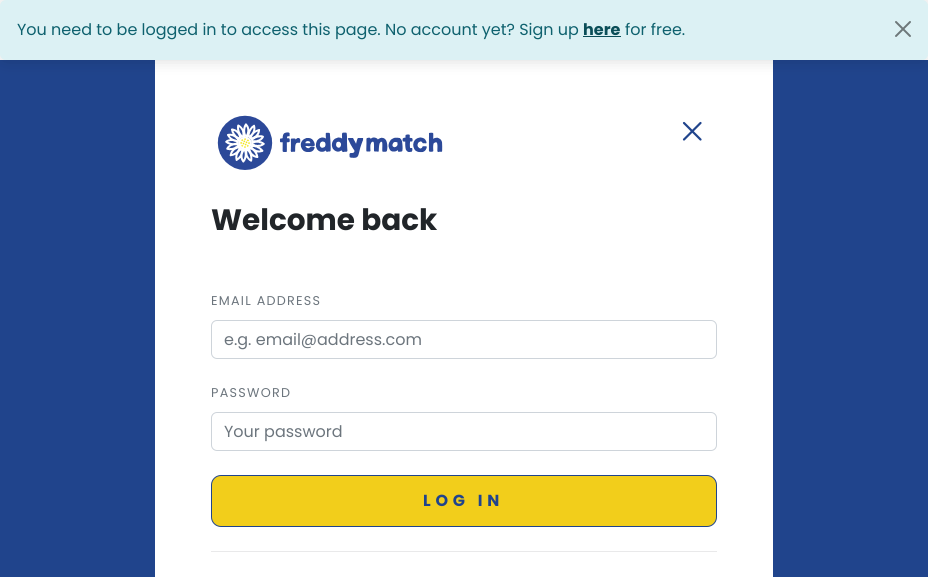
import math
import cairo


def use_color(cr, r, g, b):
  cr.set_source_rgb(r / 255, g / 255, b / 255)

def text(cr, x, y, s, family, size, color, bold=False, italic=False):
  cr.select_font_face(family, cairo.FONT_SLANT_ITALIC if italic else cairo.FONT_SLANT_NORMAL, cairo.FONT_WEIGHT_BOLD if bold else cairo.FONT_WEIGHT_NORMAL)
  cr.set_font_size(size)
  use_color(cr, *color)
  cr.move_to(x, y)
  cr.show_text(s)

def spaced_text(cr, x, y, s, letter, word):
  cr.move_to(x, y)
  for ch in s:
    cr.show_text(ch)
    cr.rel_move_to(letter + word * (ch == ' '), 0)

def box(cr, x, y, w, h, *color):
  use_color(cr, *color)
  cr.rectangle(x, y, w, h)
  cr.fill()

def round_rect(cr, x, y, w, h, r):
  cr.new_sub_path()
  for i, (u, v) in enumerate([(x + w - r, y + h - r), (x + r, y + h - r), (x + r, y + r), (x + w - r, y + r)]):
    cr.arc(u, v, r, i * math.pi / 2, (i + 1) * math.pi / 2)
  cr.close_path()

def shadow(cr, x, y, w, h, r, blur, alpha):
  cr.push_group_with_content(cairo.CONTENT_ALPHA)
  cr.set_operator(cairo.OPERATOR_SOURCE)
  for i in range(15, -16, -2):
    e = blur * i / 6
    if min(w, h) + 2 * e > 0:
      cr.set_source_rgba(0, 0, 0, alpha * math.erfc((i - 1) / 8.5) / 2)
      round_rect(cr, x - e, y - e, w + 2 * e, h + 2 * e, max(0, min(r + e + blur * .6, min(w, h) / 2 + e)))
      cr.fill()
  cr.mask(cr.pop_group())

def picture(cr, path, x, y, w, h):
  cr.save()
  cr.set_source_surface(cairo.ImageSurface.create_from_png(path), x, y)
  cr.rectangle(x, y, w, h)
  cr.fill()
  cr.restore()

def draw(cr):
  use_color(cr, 255, 255, 255)
  cr.paint()
  box(cr, 0, 60, 155, 517, 32, 68, 140)
  box(cr, 773, 60, 155, 517, 32, 68, 140)
  use_color(cr, 0, 0, 0)
  shadow(cr, 0, 0, 928, 60, 6, 8, 0.15)
  use_color(cr, 220, 241, 244)
  round_rect(cr, 0.5, 0.5, 927, 59, 5.5)
  cr.fill_preserve()
  cr.set_line_width(1)
  cr.stroke()
  box(cr, 583, 36, 38, 1, 11, 78, 88)
  picture(cr, "img_01.png", 895, 21, 16, 16)
  cr.new_path()
  cr.move_to(700.5, 123)
  cr.line_to(684, 139.5)
  cr.move_to(700.5, 139.5)
  cr.line_to(684, 123)
  use_color(cr, 32, 68, 140)
  cr.set_line_width(2.2)
  cr.set_line_cap(cairo.LINE_CAP_ROUND)
  cr.set_line_join(cairo.LINE_JOIN_ROUND)
  cr.stroke()
  picture(cr, "img_02.png", 217, 115, 226, 55)
  round_rect(cr, 211.5, 320.5, 505, 38, 5.5)
  use_color(cr, 206, 212, 218)
  cr.set_line_width(1)
  cr.set_line_cap(cairo.LINE_CAP_BUTT)
  cr.set_line_join(cairo.LINE_JOIN_MITER)
  cr.stroke()
  round_rect(cr, 211.5, 412.5, 505, 38, 5.5)
  cr.stroke()
  use_color(cr, 242, 206, 27)
  round_rect(cr, 211.5, 475.5, 505, 51, 9.5)
  cr.fill_preserve()
  use_color(cr, 32, 68, 140)
  cr.stroke()
  box(cr, 211, 551, 506, 1, 233, 233, 234)
  text(cr, 17, 35, "You need to be logged in to access this page. No account yet? Sign up", "Poppins", 16, (14, 97, 110))
  text(cr, 583, 35, "here", "Poppins", 16, (11, 78, 88), bold=True)
  text(cr, 625, 35, "for free.", "Poppins", 16, (14, 97, 110))
  text(cr, 211, 230, "Welcome back", "Poppins", 29.5, (33, 37, 41), bold=True)
  cr.select_font_face("Poppins")
  cr.set_font_size(12.75)
  use_color(cr, 108, 117, 125)
  spaced_text(cr, 211, 305, "EMAIL ADDRESS", 1.25, 0)
  text(cr, 224, 345, "e.g. email@address.com", "Poppins", 16, (108, 117, 125))
  cr.set_font_size(12.75)
  spaced_text(cr, 211, 397, "PASSWORD", 1.25, 0)
  text(cr, 224, 437, "Your password", "Poppins", 16, (108, 117, 125))
  cr.select_font_face("Poppins", cairo.FONT_SLANT_NORMAL, cairo.FONT_WEIGHT_BOLD)
  use_color(cr, 32, 68, 140)
  spaced_text(cr, 423, 506, "LOG IN", 4.75, 0)


surface = cairo.ImageSurface(cairo.FORMAT_RGB24, 928, 577)
cr = cairo.Context(surface)
options = cairo.FontOptions()
options.set_hint_metrics(cairo.HINT_METRICS_OFF)
options.set_hint_style(cairo.HINT_STYLE_NONE)
cr.set_font_options(options)
cr.set_miter_limit(4)
draw(cr)
surface.write_to_png("out.png")
